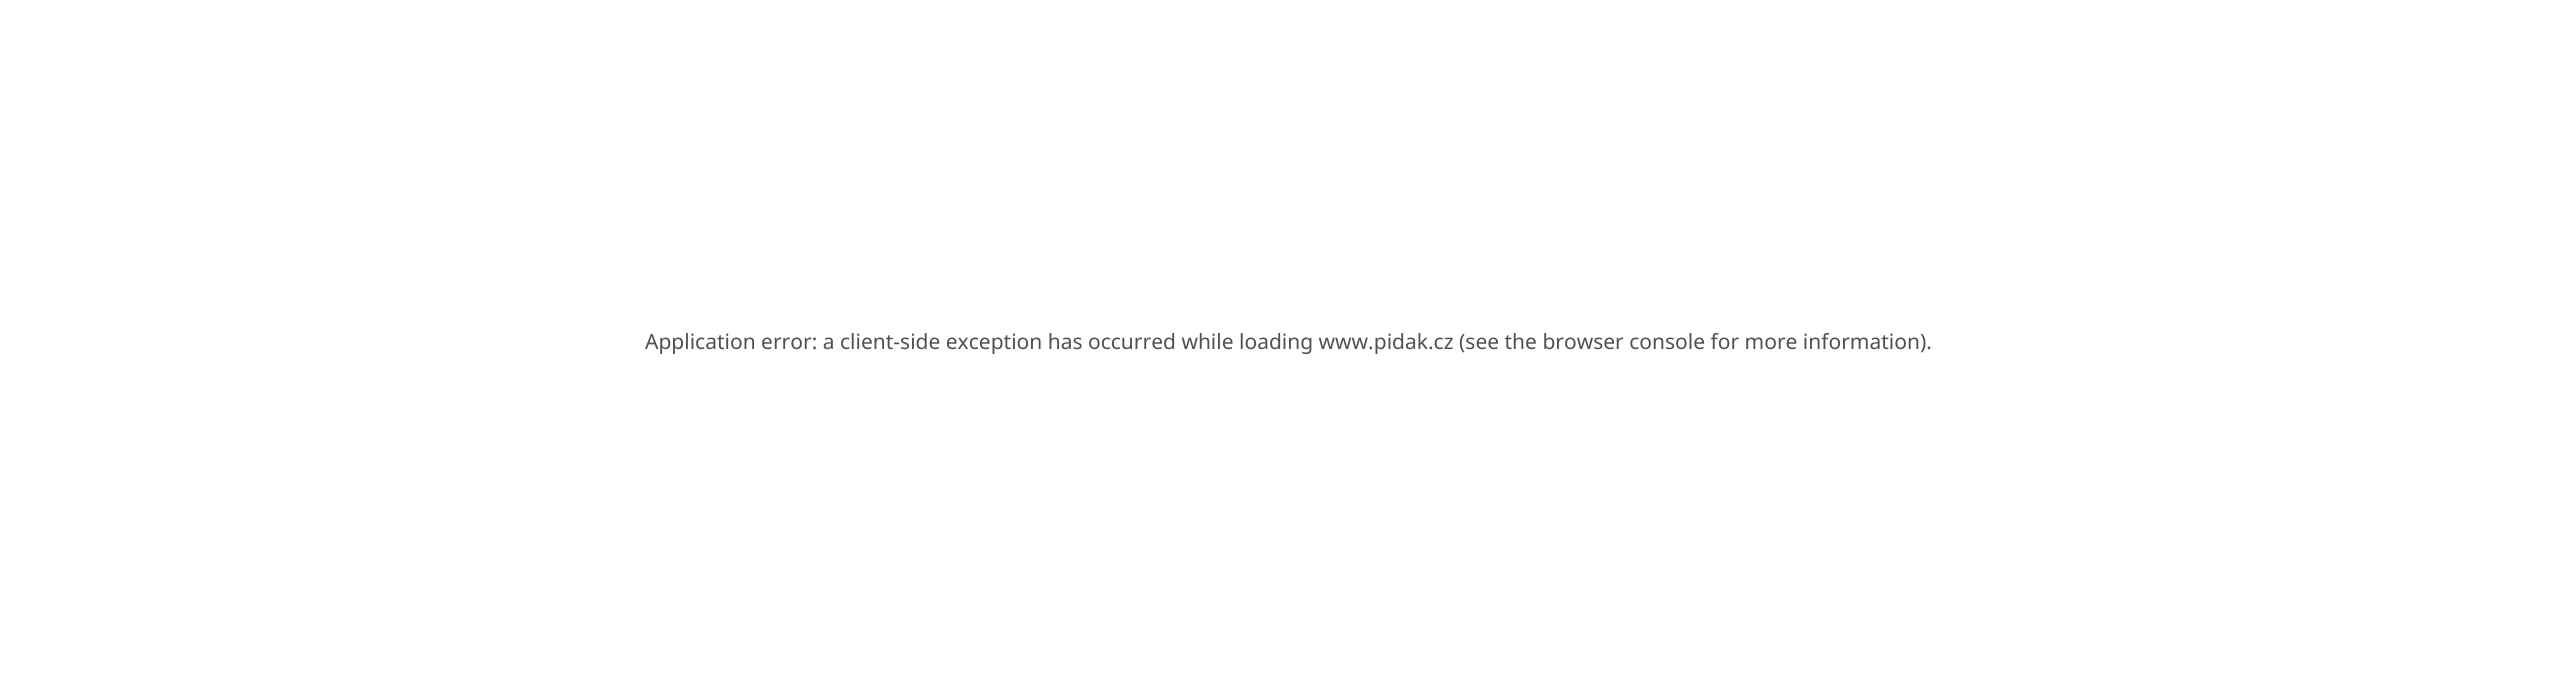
import math
import cairo


def use_color(cr, r, g, b):
  cr.set_source_rgb(r / 255, g / 255, b / 255)

def text(cr, x, y, s, family, size, color, bold=False, italic=False):
  cr.select_font_face(family, cairo.FONT_SLANT_ITALIC if italic else cairo.FONT_SLANT_NORMAL, cairo.FONT_WEIGHT_BOLD if bold else cairo.FONT_WEIGHT_NORMAL)
  cr.set_font_size(size)
  use_color(cr, *color)
  cr.move_to(x, y)
  cr.show_text(s)

def draw(cr):
  use_color(cr, 255, 255, 255)
  cr.paint()
  text(cr, 645, 349, "Application error: a client-side exception has occurred while loading www.pidak.cz (see the browser console for more information).", "Noto Sans", 21, (80, 80, 80))


surface = cairo.ImageSurface(cairo.FORMAT_RGB24, 2576, 682)
cr = cairo.Context(surface)
options = cairo.FontOptions()
options.set_hint_metrics(cairo.HINT_METRICS_OFF)
options.set_hint_style(cairo.HINT_STYLE_NONE)
cr.set_font_options(options)
cr.set_miter_limit(4)
draw(cr)
surface.write_to_png("out.png")
